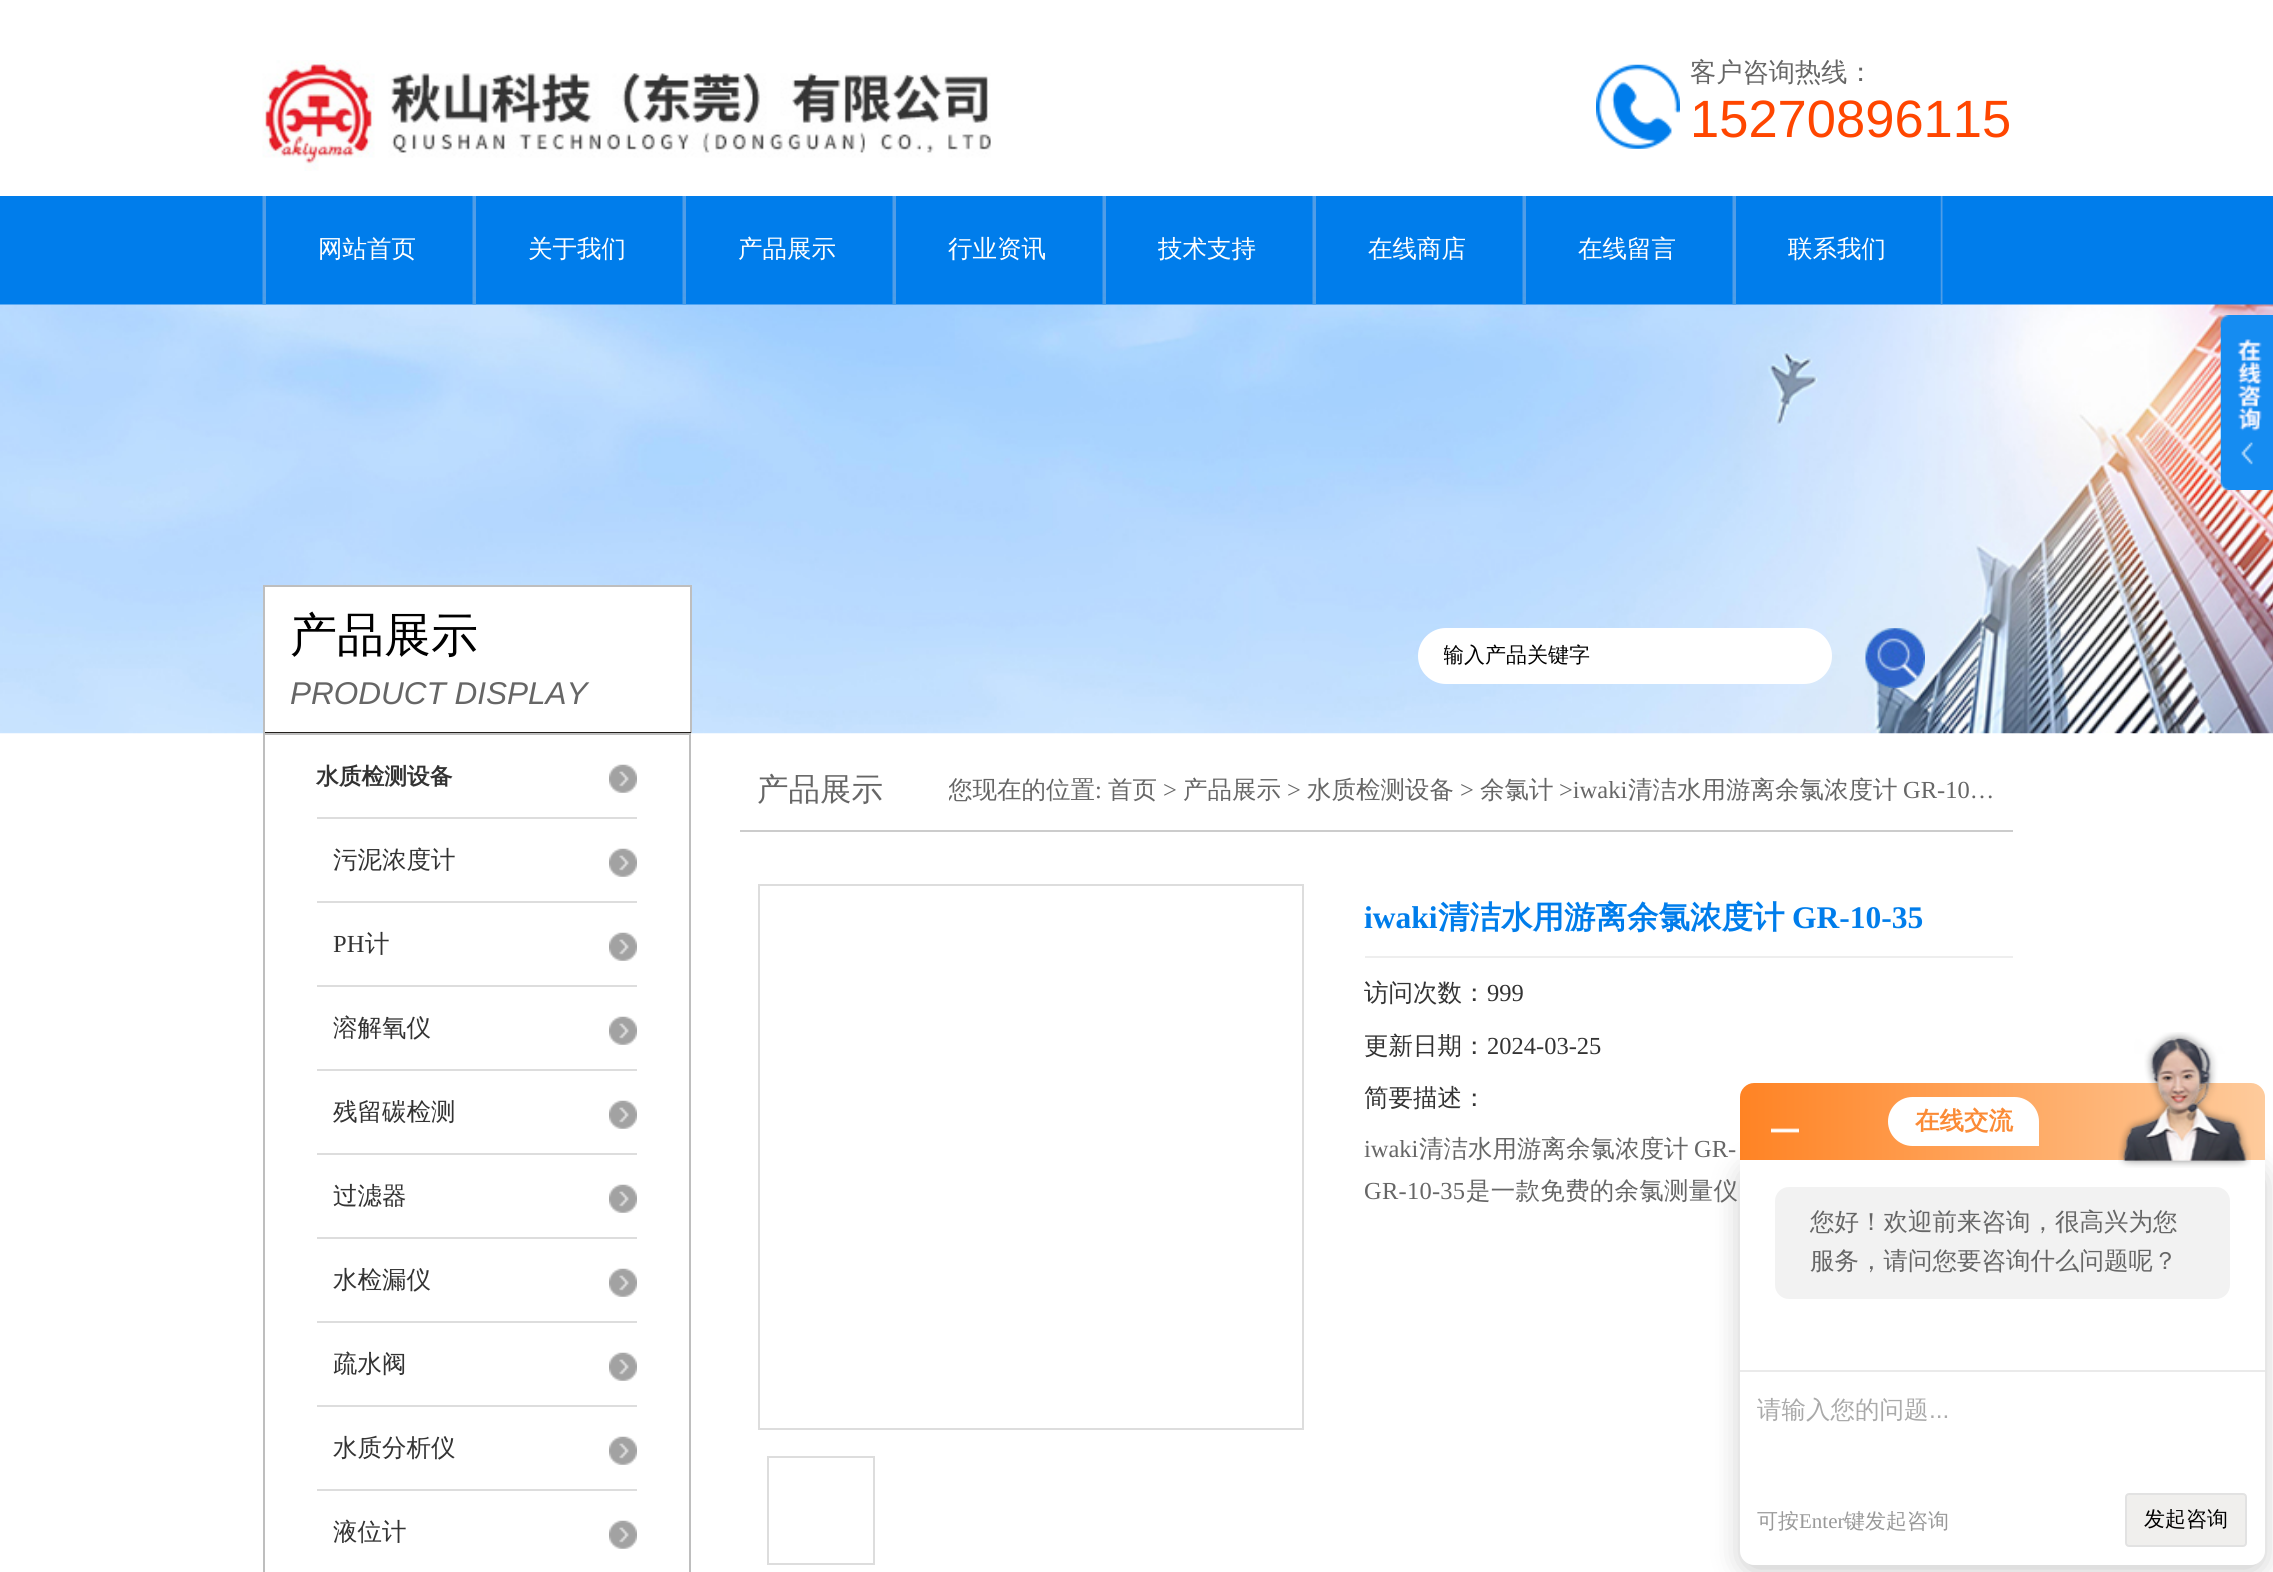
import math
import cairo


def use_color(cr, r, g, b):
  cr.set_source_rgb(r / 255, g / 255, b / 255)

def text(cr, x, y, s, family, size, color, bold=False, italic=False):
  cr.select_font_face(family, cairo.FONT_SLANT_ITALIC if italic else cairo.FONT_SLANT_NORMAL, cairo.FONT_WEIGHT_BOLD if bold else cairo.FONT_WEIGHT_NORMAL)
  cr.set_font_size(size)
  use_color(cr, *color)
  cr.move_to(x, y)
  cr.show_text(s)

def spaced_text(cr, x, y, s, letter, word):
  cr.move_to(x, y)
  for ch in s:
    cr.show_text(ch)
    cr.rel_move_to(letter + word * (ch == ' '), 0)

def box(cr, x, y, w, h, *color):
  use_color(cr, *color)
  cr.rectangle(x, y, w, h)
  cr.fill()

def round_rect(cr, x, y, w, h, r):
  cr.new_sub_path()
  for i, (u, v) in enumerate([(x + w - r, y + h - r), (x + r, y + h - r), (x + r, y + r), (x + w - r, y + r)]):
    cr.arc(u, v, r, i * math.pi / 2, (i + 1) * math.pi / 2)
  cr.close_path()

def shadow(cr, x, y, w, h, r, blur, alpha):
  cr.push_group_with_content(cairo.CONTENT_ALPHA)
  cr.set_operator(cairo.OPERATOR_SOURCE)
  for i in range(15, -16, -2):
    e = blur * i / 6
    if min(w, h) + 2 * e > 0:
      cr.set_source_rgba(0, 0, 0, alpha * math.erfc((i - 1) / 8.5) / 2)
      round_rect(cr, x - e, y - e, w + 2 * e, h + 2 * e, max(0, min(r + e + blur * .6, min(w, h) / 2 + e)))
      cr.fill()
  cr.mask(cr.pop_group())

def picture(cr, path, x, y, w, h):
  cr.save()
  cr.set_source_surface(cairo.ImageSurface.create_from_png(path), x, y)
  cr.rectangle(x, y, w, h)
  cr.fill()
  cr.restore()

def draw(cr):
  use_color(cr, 255, 255, 255)
  cr.paint()
  picture(cr, "img_01.png", 262, 60, 729, 111)
  picture(cr, "img_02.png", 1596, 64, 84, 85)
  box(cr, 0, 196, 2273, 109, 0, 125, 235)
  picture(cr, "img_12.png", 0, 304, 2273, 430)
  picture(cr, "img_03.png", 262, 196, 4, 109)
  picture(cr, "img_04.png", 472, 196, 4, 109)
  picture(cr, "img_05.png", 682, 196, 4, 109)
  picture(cr, "img_06.png", 892, 196, 4, 109)
  picture(cr, "img_07.png", 1102, 196, 4, 109)
  picture(cr, "img_08.png", 1312, 196, 4, 109)
  picture(cr, "img_09.png", 1522, 196, 4, 109)
  picture(cr, "img_10.png", 1732, 196, 4, 109)
  picture(cr, "img_11.png", 1940, 196, 3, 109)
  picture(cr, "img_13.png", 2220, 315, 53, 175)
  box(cr, 265, 587, 425, 145, 255, 255, 255)
  box(cr, 263, 585, 428, 2, 190, 190, 190)
  box(cr, 690, 585, 2, 148, 190, 190, 190)
  box(cr, 263, 732, 428, 1, 35, 32, 29)
  box(cr, 263, 585, 2, 148, 190, 190, 190)
  use_color(cr, 255, 255, 255)
  round_rect(cr, 1418, 628, 414, 56, 28)
  cr.fill()
  picture(cr, "img_14.png", 1865, 628, 60, 60)
  cr.rectangle(264, 734, 426, 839)
  use_color(cr, 190, 190, 190)
  cr.stroke()
  picture(cr, "img_15.png", 609, 764, 28, 29)
  box(cr, 317, 817, 320, 2, 221, 221, 221)
  picture(cr, "img_15.png", 609, 848, 28, 29)
  box(cr, 317, 901, 320, 2, 221, 221, 221)
  picture(cr, "img_15.png", 609, 932, 28, 29)
  box(cr, 317, 985, 320, 2, 221, 221, 221)
  picture(cr, "img_15.png", 609, 1016, 28, 29)
  box(cr, 317, 1069, 320, 2, 221, 221, 221)
  picture(cr, "img_15.png", 609, 1100, 28, 29)
  box(cr, 317, 1153, 320, 2, 221, 221, 221)
  picture(cr, "img_15.png", 609, 1184, 28, 29)
  box(cr, 317, 1237, 320, 2, 221, 221, 221)
  picture(cr, "img_15.png", 609, 1268, 28, 29)
  box(cr, 317, 1321, 320, 2, 221, 221, 221)
  picture(cr, "img_15.png", 609, 1352, 28, 29)
  box(cr, 317, 1405, 320, 2, 221, 221, 221)
  picture(cr, "img_15.png", 609, 1436, 28, 29)
  box(cr, 317, 1489, 320, 2, 221, 221, 221)
  picture(cr, "img_15.png", 609, 1520, 28, 29)
  box(cr, 740, 830, 1273, 2, 204, 204, 204)
  cr.rectangle(759, 885, 544, 544)
  use_color(cr, 221, 221, 221)
  cr.stroke()
  cr.rectangle(768, 1457, 106, 107)
  cr.stroke()
  box(cr, 1365, 956, 648, 2, 238, 238, 238)
  use_color(cr, 0, 0, 0)
  shadow(cr, 1740, 1167, 525, 405, 14, 14, 0.2)
  gradient = cairo.LinearGradient(1740, 1122, 2265, 1122)
  gradient.add_color_stop_rgba(0, 1, 0.514, 0.141, 1)
  gradient.add_color_stop_rgba(1, 0.996, 0.796, 0.612, 1)
  cr.set_source(gradient)
  cr.new_path()
  cr.move_to(1754, 1083)
  cr.line_to(2251, 1083)
  cr.curve_to(2258.5, 1083, 2265, 1089.5, 2265, 1097)
  cr.line_to(2265, 1160)
  cr.line_to(1740, 1160)
  cr.line_to(1740, 1097)
  cr.curve_to(1740, 1089.5, 1746.5, 1083, 1754, 1083)
  cr.close_path()
  cr.fill()
  picture(cr, "img_16.png", 1771, 1128, 28, 5)
  use_color(cr, 255, 255, 255)
  cr.new_path()
  cr.move_to(1912.5, 1097)
  cr.line_to(2014.5, 1097)
  cr.curve_to(2028, 1097, 2039, 1108, 2039, 1121.5)
  cr.line_to(2039, 1146)
  cr.line_to(1912.5, 1146)
  cr.curve_to(1899, 1146, 1888, 1135, 1888, 1121.5)
  cr.curve_to(1888, 1108, 1899, 1097, 1912.5, 1097)
  cr.close_path()
  cr.fill()
  cr.new_path()
  cr.move_to(1740, 1160)
  cr.line_to(2265, 1160)
  cr.line_to(2265, 1551)
  cr.curve_to(2265, 1558.5, 2258.5, 1565, 2251, 1565)
  cr.line_to(1754, 1565)
  cr.curve_to(1746.5, 1565, 1740, 1558.5, 1740, 1551)
  cr.close_path()
  cr.fill()
  picture(cr, "img_17.png", 2118, 1032, 133, 136)
  use_color(cr, 242, 242, 242)
  round_rect(cr, 1775, 1187, 455, 112, 14)
  cr.fill()
  box(cr, 1740, 1370, 525, 2, 234, 234, 234)
  use_color(cr, 240, 239, 237)
  round_rect(cr, 2126, 1494, 120, 52, 3)
  cr.fill_preserve()
  use_color(cr, 226, 226, 226)
  cr.stroke()
  text(cr, 1690, 81, "客户咨询热线：", "WenQuanYi Zen Hei Medium", 26.25, (102, 102, 102))
  text(cr, 1690, 137, "15270896115", "Liberation Sans", 52.5, (255, 70, 0))
  text(cr, 318, 257, "网站首页", "WenQuanYi Zen Hei Medium", 24.5, (255, 255, 255))
  text(cr, 528, 257, "关于我们", "WenQuanYi Zen Hei Medium", 24.5, (255, 255, 255))
  text(cr, 738, 257, "产品展示", "WenQuanYi Zen Hei Medium", 24.5, (255, 255, 255))
  text(cr, 948, 257, "行业资讯", "WenQuanYi Zen Hei Medium", 24.5, (255, 255, 255))
  text(cr, 1158, 257, "技术支持", "WenQuanYi Zen Hei Medium", 24.5, (255, 255, 255))
  text(cr, 1368, 257, "在线商店", "WenQuanYi Zen Hei Medium", 24.5, (255, 255, 255))
  text(cr, 1578, 257, "在线留言", "WenQuanYi Zen Hei Medium", 24.5, (255, 255, 255))
  text(cr, 1788, 257, "联系我们", "WenQuanYi Zen Hei Medium", 24.5, (255, 255, 255))
  text(cr, 290, 651, "产品展示", "WenQuanYi Zen Hei Medium", 47, (0, 0, 0))
  text(cr, 290, 704, "PRODUCT DISPLAY", "Liberation Sans", 31.5, (102, 102, 102), italic=True)
  cr.save()
  cr.rectangle(1444, 642, 388, 30)
  cr.clip()
  text(cr, 1443, 662, "输入产品关键字", "WenQuanYi Zen Hei Medium", 21, (0, 0, 0))
  cr.restore()
  text(cr, 316, 784, "水质检测设备", "WenQuanYi Zen Hei", 22.75, (51, 51, 51), bold=True)
  text(cr, 333, 868, "污泥浓度计", "WenQuanYi Zen Hei Medium", 24.5, (51, 51, 51))
  text(cr, 333, 952, "PH", "Liberation Serif", 24.5, (51, 51, 51))
  text(cr, 365, 952, "计", "WenQuanYi Zen Hei Medium", 24.5, (51, 51, 51))
  text(cr, 333, 1036, "溶解氧仪", "WenQuanYi Zen Hei Medium", 24.5, (51, 51, 51))
  text(cr, 333, 1120, "残留碳检测", "WenQuanYi Zen Hei Medium", 24.5, (51, 51, 51))
  text(cr, 333, 1204, "过滤器", "WenQuanYi Zen Hei Medium", 24.5, (51, 51, 51))
  text(cr, 333, 1288, "水检漏仪", "WenQuanYi Zen Hei Medium", 24.5, (51, 51, 51))
  text(cr, 333, 1372, "疏水阀", "WenQuanYi Zen Hei Medium", 24.5, (51, 51, 51))
  text(cr, 333, 1456, "水质分析仪", "WenQuanYi Zen Hei Medium", 24.5, (51, 51, 51))
  text(cr, 333, 1540, "液位计", "WenQuanYi Zen Hei Medium", 24.5, (51, 51, 51))
  text(cr, 757, 800, "产品展示", "WenQuanYi Zen Hei Medium", 31.5, (102, 102, 102))
  cr.save()
  cr.rectangle(949, 751, 1050, 79)
  cr.clip()
  text(cr, 948, 798, "您现在的位置", "WenQuanYi Zen Hei Medium", 24.5, (102, 102, 102))
  cr.restore()
  text(cr, 1095, 798, ":", "Liberation Serif", 24.5, (102, 102, 102))
  text(cr, 1108, 798, "首页", "WenQuanYi Zen Hei Medium", 24.5, (102, 102, 102))
  text(cr, 1163, 798, ">", "Liberation Serif", 24.5, (102, 102, 102))
  text(cr, 1183, 798, "产品展示", "WenQuanYi Zen Hei Medium", 24.5, (102, 102, 102))
  text(cr, 1287, 798, ">", "Liberation Serif", 24.5, (102, 102, 102))
  text(cr, 1307, 798, "水质检测设备", "WenQuanYi Zen Hei Medium", 24.5, (102, 102, 102))
  text(cr, 1460, 798, ">", "Liberation Serif", 24.5, (102, 102, 102))
  text(cr, 1480, 798, "余氯计", "WenQuanYi Zen Hei Medium", 24.5, (102, 102, 102))
  text(cr, 1559, 798, ">iwaki", "Liberation Serif", 24.5, (102, 102, 102))
  text(cr, 1628, 798, "清洁水用游离余氯浓度计", "WenQuanYi Zen Hei Medium", 24.5, (102, 102, 102))
  text(cr, 1903, 798, "GR-10…", "Liberation Serif", 24.5, (102, 102, 102))
  text(cr, 1364, 928, "iwaki", "Liberation Serif", 31.5, (0, 125, 235), bold=True)
  text(cr, 1438, 928, "清洁水用游离余氯浓度计", "WenQuanYi Zen Hei", 31.5, (0, 125, 235), bold=True)
  text(cr, 1792, 928, "GR-10-35", "Liberation Serif", 31.5, (0, 125, 235), bold=True)
  text(cr, 1364, 1001, "访问次数：", "WenQuanYi Zen Hei Medium", 24.5, (51, 51, 51))
  text(cr, 1487, 1001, "999", "Liberation Serif", 24.5, (51, 51, 51))
  text(cr, 1364, 1054, "更新日期：", "WenQuanYi Zen Hei Medium", 24.5, (51, 51, 51))
  text(cr, 1487, 1054, "2024-03-25", "Liberation Serif", 24.5, (51, 51, 51))
  text(cr, 1364, 1106, "简要描述：", "WenQuanYi Zen Hei Medium", 24.5, (51, 51, 51))
  text(cr, 1364, 1157, "iwaki", "Liberation Serif", 24.5, (102, 102, 102))
  text(cr, 1419, 1157, "清洁水用游离余氯浓度计", "WenQuanYi Zen Hei Medium", 24.5, (102, 102, 102))
  text(cr, 1694, 1157, "GR-", "Liberation Serif", 24.5, (102, 102, 102))
  spaced_text(cr, 1364, 1199, "GR-10-35", 0.25, 0)
  cr.select_font_face("WenQuanYi Zen Hei Medium")
  spaced_text(cr, 1466, 1199, "是一款免费的余氯测量仪", 0.25, 0)
  text(cr, 1915, 1129, "在线交流", "WenQuanYi Zen Hei", 24.5, (251, 139, 54), bold=True)
  text(cr, 1810, 1230, "您好！欢迎前来咨询，很高兴为您", "WenQuanYi Zen Hei Medium", 24.5, (102, 102, 102))
  text(cr, 1810, 1269, "服务，请问您要咨询什么问题呢？", "WenQuanYi Zen Hei Medium", 24.5, (102, 102, 102))
  text(cr, 1757, 1418, "请输入您的问题", "WenQuanYi Zen Hei Medium", 24.5, (170, 170, 170))
  text(cr, 1929, 1418, "...", "Liberation Sans", 24.5, (170, 170, 170))
  text(cr, 1757, 1528, "可按", "WenQuanYi Zen Hei Medium", 21, (153, 153, 153))
  text(cr, 1799, 1528, "Enter", "Liberation Serif", 21, (153, 153, 153))
  text(cr, 1844, 1528, "键发起咨询", "WenQuanYi Zen Hei Medium", 21, (153, 153, 153))
  text(cr, 2144, 1526, "发起咨询", "WenQuanYi Zen Hei Medium", 21, (0, 0, 0))


surface = cairo.ImageSurface(cairo.FORMAT_RGB24, 2273, 1572)
cr = cairo.Context(surface)
options = cairo.FontOptions()
options.set_hint_metrics(cairo.HINT_METRICS_OFF)
options.set_hint_style(cairo.HINT_STYLE_NONE)
cr.set_font_options(options)
cr.set_miter_limit(4)
draw(cr)
surface.write_to_png("out.png")
